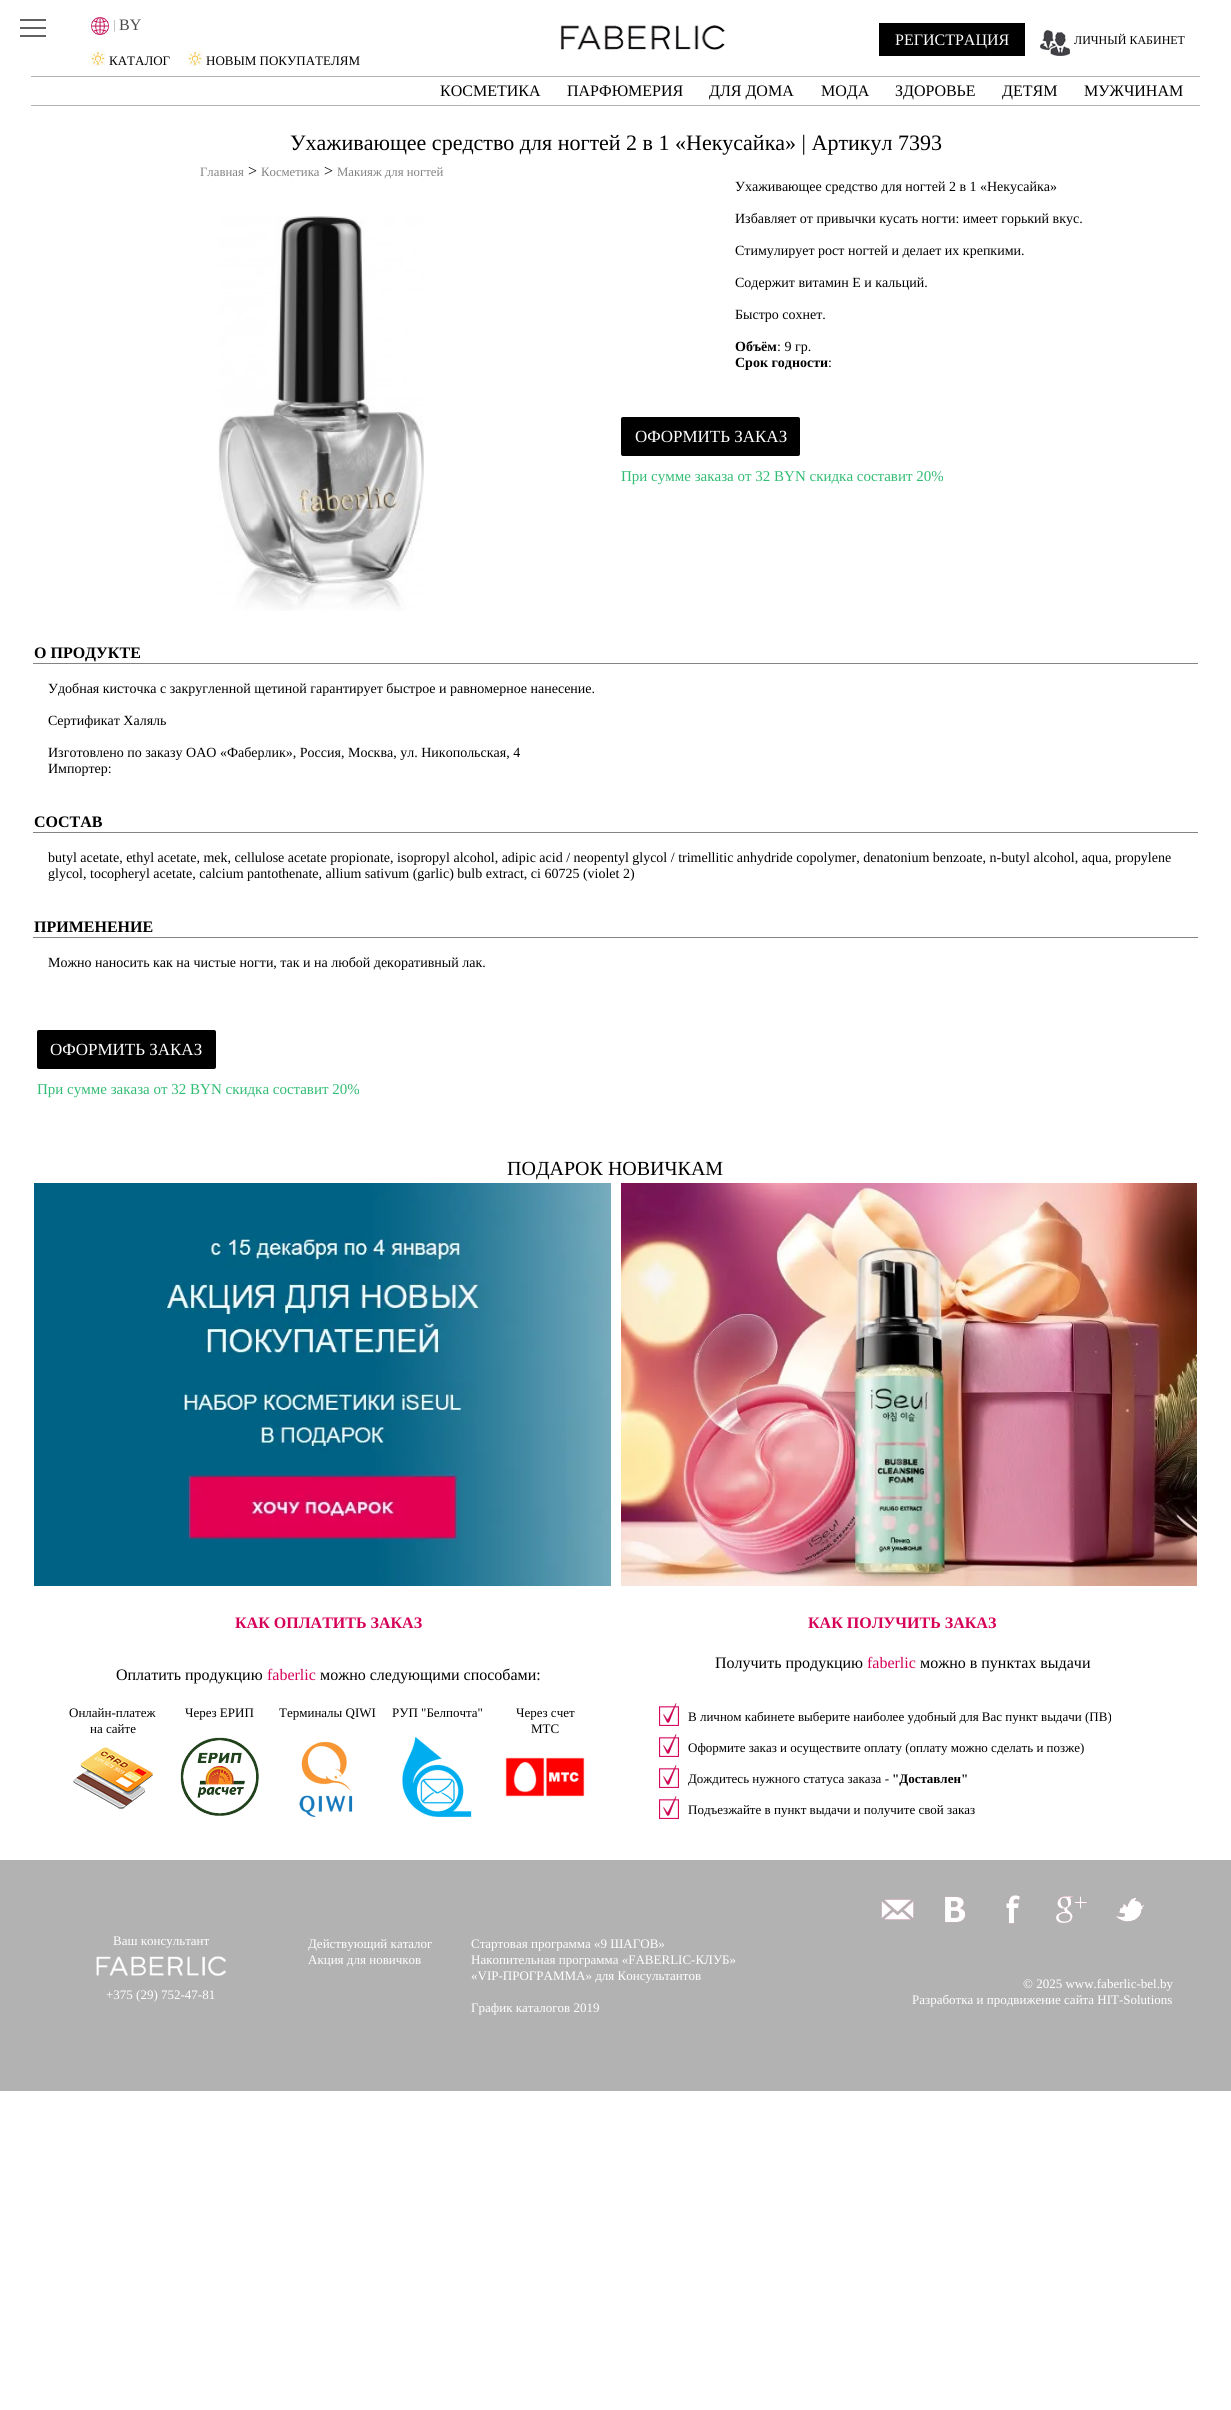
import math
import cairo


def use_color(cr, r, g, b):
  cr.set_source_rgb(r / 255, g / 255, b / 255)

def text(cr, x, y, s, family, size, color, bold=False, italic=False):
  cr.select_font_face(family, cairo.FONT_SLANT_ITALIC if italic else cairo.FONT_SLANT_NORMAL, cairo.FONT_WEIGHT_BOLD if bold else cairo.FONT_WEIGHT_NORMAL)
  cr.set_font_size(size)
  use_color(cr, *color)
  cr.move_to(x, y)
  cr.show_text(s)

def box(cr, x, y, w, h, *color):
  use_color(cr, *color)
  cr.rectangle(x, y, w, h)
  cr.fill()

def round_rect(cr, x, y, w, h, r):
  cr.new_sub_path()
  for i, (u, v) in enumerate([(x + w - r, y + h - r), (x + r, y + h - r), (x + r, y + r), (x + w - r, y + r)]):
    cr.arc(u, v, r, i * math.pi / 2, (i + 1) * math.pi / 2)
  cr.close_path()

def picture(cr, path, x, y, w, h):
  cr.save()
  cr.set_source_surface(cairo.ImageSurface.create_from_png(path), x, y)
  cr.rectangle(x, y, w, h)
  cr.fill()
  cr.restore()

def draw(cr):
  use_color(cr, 255, 255, 255)
  cr.paint()
  box(cr, 31, 76, 1169, 1, 178, 178, 178)
  box(cr, 20, 27, 26, 2, 97, 97, 97)
  box(cr, 20, 19, 26, 2, 97, 97, 97)
  box(cr, 20, 35, 26, 2, 97, 97, 97)
  picture(cr, "img_01.png", 91, 17, 18, 18)
  picture(cr, "img_02.png", 560, 25, 166, 25)
  box(cr, 879, 23, 146, 33, 0, 0, 0)
  picture(cr, "img_03.png", 1040, 30, 30, 26)
  picture(cr, "img_04.png", 91, 51, 14, 15)
  picture(cr, "img_04.png", 188, 51, 14, 15)
  box(cr, 31, 105, 1169, 1, 178, 178, 178)
  picture(cr, "img_05.png", 218, 216, 206, 395)
  use_color(cr, 0, 0, 0)
  round_rect(cr, 621, 417, 179, 39, 2)
  cr.fill()
  box(cr, 33, 663, 1165, 1, 131, 131, 133)
  box(cr, 33, 832, 1165, 1, 131, 131, 133)
  box(cr, 33, 937, 1165, 1, 131, 131, 133)
  use_color(cr, 0, 0, 0)
  round_rect(cr, 37, 1030, 179, 39, 2)
  cr.fill()
  picture(cr, "img_06.png", 34, 1183, 577, 403)
  picture(cr, "img_07.png", 621, 1183, 576, 403)
  picture(cr, "img_08.png", 73, 1747, 80, 62)
  picture(cr, "img_09.png", 180, 1737, 79, 79)
  picture(cr, "img_10.png", 299, 1741, 54, 76)
  picture(cr, "img_11.png", 402, 1737, 70, 80)
  picture(cr, "img_12.png", 505, 1757, 80, 40)
  picture(cr, "img_13.png", 659, 1703, 20, 23)
  picture(cr, "img_13.png", 659, 1734, 20, 23)
  picture(cr, "img_13.png", 659, 1765, 20, 23)
  picture(cr, "img_13.png", 659, 1796, 20, 23)
  box(cr, 0, 1860, 1231, 231, 178, 178, 178)
  picture(cr, "img_14.png", 96, 1956, 131, 20)
  picture(cr, "img_15.png", 881, 1899, 33, 21)
  picture(cr, "img_16.png", 945, 1896, 21, 27)
  picture(cr, "img_17.png", 1006, 1895, 14, 29)
  picture(cr, "img_18.png", 1056, 1896, 31, 27)
  picture(cr, "img_19.png", 1116, 1897, 28, 25)
  text(cr, 113, 29, "|", "Liberation Serif", 13, (166, 162, 166))
  text(cr, 119, 30, "BY", "Liberation Serif", 16, (77, 74, 77))
  text(cr, 895, 45, "РЕГИСТРАЦИЯ", "Liberation Serif", 16, (255, 255, 255))
  text(cr, 1074, 44, "ЛИЧНЫЙ КАБИНЕТ", "Liberation Serif", 12, (0, 0, 0))
  text(cr, 109, 65, "КАТАЛОГ", "Liberation Serif", 13, (0, 0, 0))
  text(cr, 206, 65, "НОВЫМ ПОКУПАТЕЛЯМ", "Liberation Serif", 13, (0, 0, 0))
  text(cr, 440, 96, "КОСМЕТИКА", "Liberation Serif", 16, (0, 0, 0))
  text(cr, 567, 96, "ПАРФЮМЕРИЯ", "Liberation Serif", 16, (0, 0, 0))
  text(cr, 709, 96, "ДЛЯ ДОМА", "Liberation Serif", 16, (0, 0, 0))
  text(cr, 821, 96, "МОДА", "Liberation Serif", 16, (0, 0, 0))
  text(cr, 895, 96, "ЗДОРОВЬЕ", "Liberation Serif", 16, (0, 0, 0))
  text(cr, 1002, 96, "ДЕТЯМ", "Liberation Serif", 16, (0, 0, 0))
  text(cr, 1084, 96, "МУЖЧИНАМ", "Liberation Serif", 16, (0, 0, 0))
  text(cr, 290, 150, "Ухаживающее средство для ногтей 2 в 1 «Некусайка» | Артикул 7393", "Liberation Serif", 22, (0, 0, 0))
  text(cr, 200, 176, "Главная", "Liberation Serif", 12.75, (131, 131, 133))
  text(cr, 248, 176, ">", "Liberation Serif", 16, (0, 0, 0))
  text(cr, 261, 176, "Косметика", "Liberation Serif", 12.75, (131, 131, 133))
  text(cr, 324, 176, ">", "Liberation Serif", 16, (0, 0, 0))
  text(cr, 337, 176, "Макияж для ногтей", "Liberation Serif", 12.75, (131, 131, 133))
  text(cr, 735, 191, "Ухаживающее средство для ногтей 2 в 1 «Некусайка»", "Liberation Serif", 14, (0, 0, 0))
  text(cr, 735, 223, "Избавляет от привычки кусать ногти: имеет горький вкус.", "Liberation Serif", 14, (0, 0, 0))
  text(cr, 735, 255, "Стимулирует рост ногтей и делает их крепкими.", "Liberation Serif", 14, (0, 0, 0))
  text(cr, 735, 287, "Содержит витамин Е и кальций.", "Liberation Serif", 14, (0, 0, 0))
  text(cr, 735, 319, "Быстро сохнет.", "Liberation Serif", 14, (0, 0, 0))
  text(cr, 735, 351, "Объём", "Liberation Serif", 14, (0, 0, 0), bold=True)
  text(cr, 777, 351, ": 9 гр.", "Liberation Serif", 14, (0, 0, 0))
  text(cr, 735, 367, "Срок годности", "Liberation Serif", 14, (0, 0, 0), bold=True)
  text(cr, 828, 367, ":", "Liberation Serif", 14, (0, 0, 0))
  text(cr, 635, 442, "ОФОРМИТЬ ЗАКАЗ", "Liberation Serif", 17, (255, 255, 255))
  text(cr, 621, 481, "При сумме заказа от 32 BYN скидка составит 20%", "Liberation Serif", 15, (50, 188, 116))
  text(cr, 34, 658, "О ПРОДУКТЕ", "Liberation Serif", 16, (0, 0, 0), bold=True)
  text(cr, 48, 693, "Удобная кисточка с закругленной щетиной гарантирует быстрое и равномерное нанесение.", "Liberation Serif", 14, (0, 0, 0))
  text(cr, 48, 725, "Сертификат Халяль", "Liberation Serif", 14, (0, 0, 0))
  text(cr, 48, 757, "Изготовлено по заказу ОАО «Фаберлик», Россия, Москва, ул. Никопольская, 4", "Liberation Serif", 14, (0, 0, 0))
  text(cr, 48, 773, "Импортер:", "Liberation Serif", 14, (0, 0, 0))
  text(cr, 34, 827, "СОСТАВ", "Liberation Serif", 16, (0, 0, 0), bold=True)
  text(cr, 48, 862, "butyl acetate, ethyl acetate, mek, cellulose acetate propionate, isopropyl alcohol, adipic acid / neopentyl glycol / trimellitic anhydride copolymer, denatonium benzoate, n-butyl alcohol, aqua, propylene", "Liberation Serif", 14, (0, 0, 0))
  text(cr, 48, 878, "glycol, tocopheryl acetate, calcium pantothenate, allium sativum (garlic) bulb extract, ci 60725 (violet 2)", "Liberation Serif", 14, (0, 0, 0))
  text(cr, 34, 932, "ПРИМЕНЕНИЕ", "Liberation Serif", 16, (0, 0, 0), bold=True)
  text(cr, 48, 967, "Можно наносить как на чистые ногти, так и на любой декоративный лак.", "Liberation Serif", 14, (0, 0, 0))
  text(cr, 50, 1055, "ОФОРМИТЬ ЗАКАЗ", "Liberation Serif", 17, (255, 255, 255))
  text(cr, 37, 1094, "При сумме заказа от 32 BYN скидка составит 20%", "Liberation Serif", 15, (50, 188, 116))
  text(cr, 507, 1175, "ПОДАРОК НОВИЧКАМ", "Liberation Serif", 20, (0, 0, 0))
  text(cr, 235, 1628, "КАК ОПЛАТИТЬ ЗАКАЗ", "Liberation Serif", 16, (214, 0, 88), bold=True)
  text(cr, 808, 1628, "КАК ПОЛУЧИТЬ ЗАКАЗ", "Liberation Serif", 16, (214, 0, 88), bold=True)
  text(cr, 116, 1680, "Оплатить продукцию", "Liberation Serif", 16, (0, 0, 0))
  text(cr, 267, 1680, "faberlic", "Liberation Serif", 16, (214, 0, 88))
  text(cr, 320, 1680, "можно следующими способами:", "Liberation Serif", 16, (0, 0, 0))
  text(cr, 69, 1717, "Онлайн-платеж", "Liberation Serif", 13, (0, 0, 0))
  text(cr, 90, 1733, "на сайте", "Liberation Serif", 13, (0, 0, 0))
  text(cr, 185, 1717, "Через ЕРИП", "Liberation Serif", 13, (0, 0, 0))
  text(cr, 279, 1717, "Терминалы QIWI", "Liberation Serif", 13, (0, 0, 0))
  text(cr, 392, 1717, "РУП \"Белпочта\"", "Liberation Serif", 13, (0, 0, 0))
  text(cr, 516, 1717, "Через счет", "Liberation Serif", 13, (0, 0, 0))
  text(cr, 531, 1733, "МТС", "Liberation Serif", 13, (0, 0, 0))
  text(cr, 715, 1668, "Получить продукцию", "Liberation Serif", 16, (0, 0, 0))
  text(cr, 867, 1668, "faberlic", "Liberation Serif", 16, (214, 0, 88))
  text(cr, 920, 1668, "можно в пунктах выдачи", "Liberation Serif", 16, (0, 0, 0))
  text(cr, 688, 1721, "В личном кабинете выберите наиболее удобный для Вас пункт выдачи (ПВ)", "Liberation Serif", 13, (0, 0, 0))
  text(cr, 688, 1752, "Оформите заказ и осуществите оплату (оплату можно сделать и позже)", "Liberation Serif", 13, (0, 0, 0))
  text(cr, 688, 1783, "Дождитесь нужного статуса заказа -", "Liberation Serif", 13, (0, 0, 0))
  text(cr, 892, 1783, "\"Доставлен\"", "Liberation Serif", 13, (0, 0, 0), bold=True)
  text(cr, 688, 1814, "Подъезжайте в пункт выдачи и получите свой заказ", "Liberation Serif", 13, (0, 0, 0))
  text(cr, 113, 1945, "Ваш консультант", "Liberation Serif", 13, (255, 255, 255))
  text(cr, 106, 1999, "+375 (29) 752-47-81", "Liberation Serif", 13, (255, 255, 255))
  text(cr, 308, 1948, "Действующий каталог", "Liberation Serif", 13, (255, 255, 255))
  text(cr, 308, 1964, "Акция для новичков", "Liberation Serif", 13, (255, 255, 255))
  text(cr, 471, 1948, "Стартовая программа «9 ШАГОВ»", "Liberation Serif", 13, (255, 255, 255))
  text(cr, 471, 1964, "Накопительная программа «FABERLIC-КЛУБ»", "Liberation Serif", 13, (255, 255, 255))
  text(cr, 471, 1980, "«VIP-ПРОГРАММА» для Консультантов", "Liberation Serif", 13, (255, 255, 255))
  text(cr, 471, 2012, "График каталогов 2019", "Liberation Serif", 13, (255, 255, 255))
  text(cr, 1023, 1988, "© 2025 www.faberlic-bel.by", "Liberation Serif", 13, (255, 255, 255))
  text(cr, 912, 2004, "Разработка и продвижение сайта HIT-Solutions", "Liberation Serif", 13, (255, 255, 255))


surface = cairo.ImageSurface(cairo.FORMAT_RGB24, 1231, 2410)
cr = cairo.Context(surface)
options = cairo.FontOptions()
options.set_hint_metrics(cairo.HINT_METRICS_OFF)
options.set_hint_style(cairo.HINT_STYLE_NONE)
cr.set_font_options(options)
cr.set_miter_limit(4)
draw(cr)
surface.write_to_png("out.png")
